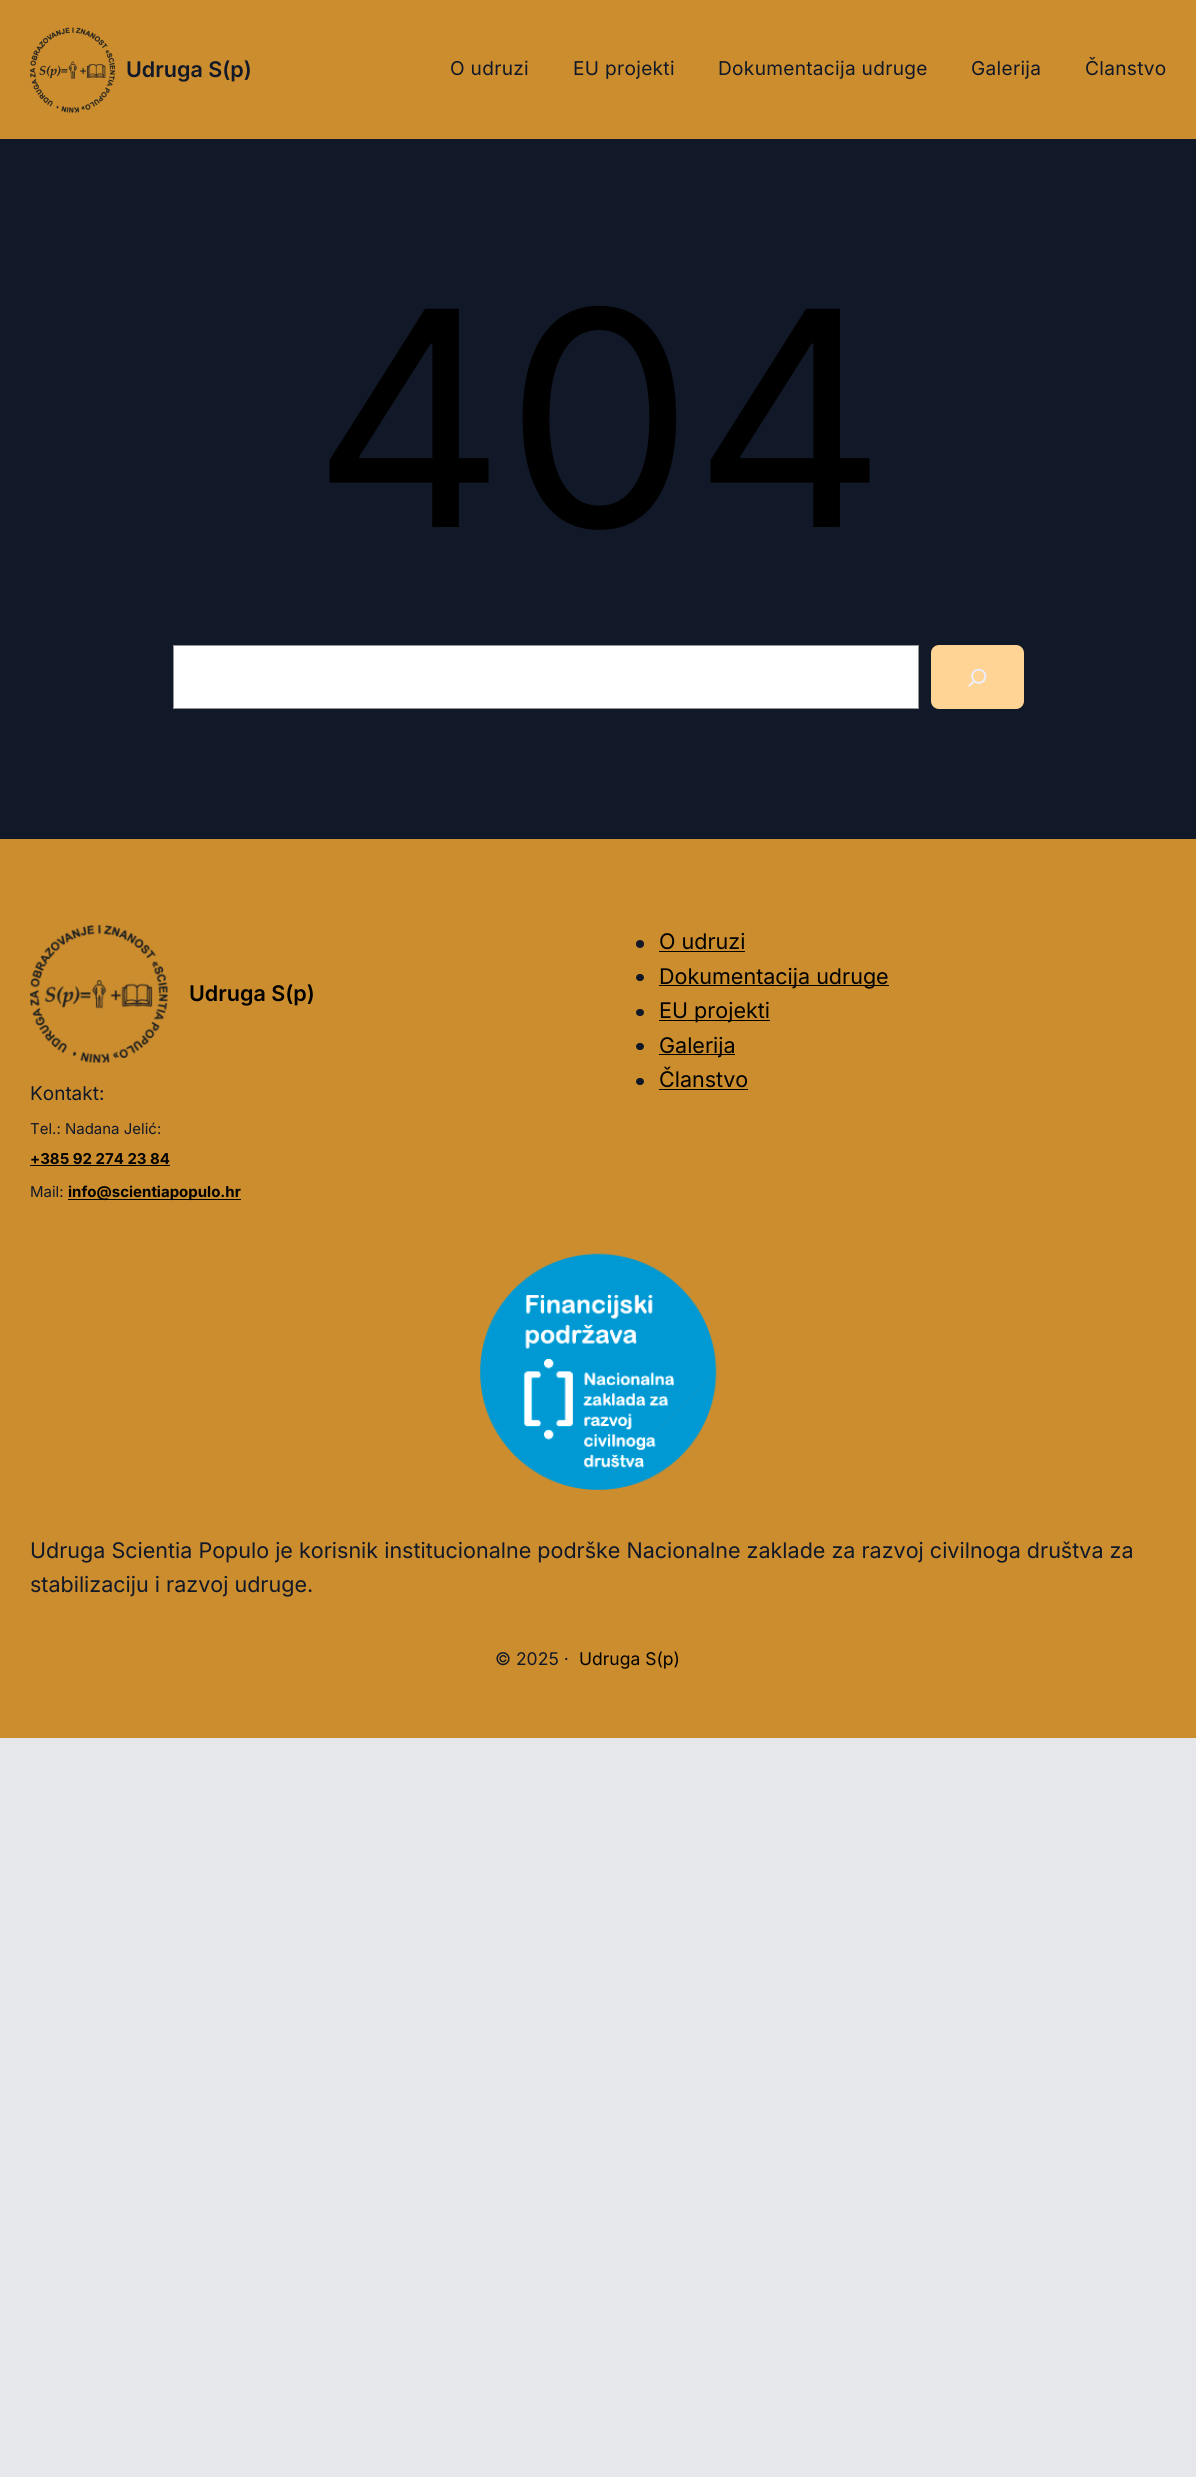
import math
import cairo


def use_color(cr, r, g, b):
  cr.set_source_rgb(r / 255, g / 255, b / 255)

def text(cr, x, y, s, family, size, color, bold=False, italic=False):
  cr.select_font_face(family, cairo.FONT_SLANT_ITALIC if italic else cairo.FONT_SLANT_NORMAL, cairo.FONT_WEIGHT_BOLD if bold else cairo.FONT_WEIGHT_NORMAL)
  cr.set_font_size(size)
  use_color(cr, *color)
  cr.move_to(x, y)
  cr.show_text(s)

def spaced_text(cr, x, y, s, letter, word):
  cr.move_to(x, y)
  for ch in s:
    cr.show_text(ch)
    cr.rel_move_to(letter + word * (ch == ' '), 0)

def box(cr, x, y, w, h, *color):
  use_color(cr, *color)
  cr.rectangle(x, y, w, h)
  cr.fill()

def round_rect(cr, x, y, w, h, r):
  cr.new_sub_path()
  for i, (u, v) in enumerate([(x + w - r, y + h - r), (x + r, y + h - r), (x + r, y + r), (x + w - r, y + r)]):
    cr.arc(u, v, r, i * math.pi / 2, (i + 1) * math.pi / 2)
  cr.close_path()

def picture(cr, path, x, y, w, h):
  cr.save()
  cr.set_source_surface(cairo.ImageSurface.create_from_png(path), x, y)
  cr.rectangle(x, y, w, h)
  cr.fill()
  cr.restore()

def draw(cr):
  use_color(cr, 229, 231, 235)
  cr.paint()
  box(cr, 0, 0, 1196, 139, 204, 141, 46)
  picture(cr, "img_01.png", 30, 27, 85, 86)
  box(cr, 0, 139, 1196, 700, 17, 24, 39)
  use_color(cr, 255, 255, 255)
  cr.rectangle(173.5, 645.5, 745, 63)
  cr.fill_preserve()
  use_color(cr, 148, 148, 148)
  cr.set_line_width(1)
  cr.stroke()
  use_color(cr, 255, 212, 148)
  round_rect(cr, 931, 645, 93, 64, 8)
  cr.fill()
  picture(cr, "img_02.png", 968, 668, 19, 19)
  box(cr, 0, 839, 1196, 899, 204, 141, 46)
  picture(cr, "img_03.png", 30, 925, 138, 138)
  box(cr, 30, 1165, 140, 1, 0, 0, 0)
  box(cr, 68, 1199, 173, 1, 0, 0, 0)
  use_color(cr, 17, 24, 39)
  cr.arc(640, 944, 4, 0, 2 * math.pi)
  cr.fill()
  box(cr, 659, 951, 86, 1, 0, 0, 0)
  use_color(cr, 17, 24, 39)
  round_rect(cr, 636, 974, 8, 7, 3.5)
  cr.fill()
  box(cr, 659, 985, 230, 1, 0, 0, 0)
  use_color(cr, 17, 24, 39)
  round_rect(cr, 636, 1009, 8, 7, 3.5)
  cr.fill()
  box(cr, 659, 1020, 111, 1, 0, 0, 0)
  use_color(cr, 17, 24, 39)
  round_rect(cr, 636, 1043, 8, 7, 3.5)
  cr.fill()
  box(cr, 659, 1054, 76, 1, 0, 0, 0)
  use_color(cr, 17, 24, 39)
  round_rect(cr, 636, 1078, 8, 7, 3.5)
  cr.fill()
  box(cr, 659, 1089, 89, 1, 0, 0, 0)
  picture(cr, "img_04.png", 480, 1253, 237, 237)
  text(cr, 126, 77, "Udruga S(p)", "Inter SemiBold", 21.53, (17, 24, 39))
  cr.select_font_face("Inter")
  cr.set_font_size(19.1)
  spaced_text(cr, 450, 75, "O udruzi", 0.3, 0)
  spaced_text(cr, 573, 75, "EU projekti", 0.3, 0)
  spaced_text(cr, 718, 75, "Dokumentacija udruge", 0.3, 0)
  spaced_text(cr, 971, 75, "Galerija", 0.3, 0)
  spaced_text(cr, 1085, 75, "Članstvo", 0.3, 0)
  cr.set_font_size(300)
  use_color(cr, 0, 0, 0)
  spaced_text(cr, 312, 527, "404", -1, 0)
  text(cr, 189, 1001, "Udruga S(p)", "Inter SemiBold", 21.53, (0, 0, 0))
  text(cr, 30, 1100, "Kontakt:", "Inter", 19, (17, 24, 39))
  text(cr, 30, 1134, "Tel.: Nadana Jelić:", "Inter", 15, (17, 24, 39))
  text(cr, 30, 1164, "+385 92 274 23 84", "Inter", 15, (0, 0, 0), bold=True)
  text(cr, 30, 1197, "Mail:", "Inter", 15, (17, 24, 39))
  text(cr, 68, 1197, "info@scientiapopulo.hr", "Inter", 15, (0, 0, 0), bold=True)
  text(cr, 659, 949, "O udruzi", "Inter", 21.53, (0, 0, 0))
  text(cr, 659, 984, "Dokumentacija udruge", "Inter", 21.53, (0, 0, 0))
  text(cr, 659, 1018, "EU projekti", "Inter", 21.53, (0, 0, 0))
  text(cr, 659, 1053, "Galerija", "Inter", 21.53, (0, 0, 0))
  text(cr, 659, 1087, "Članstvo", "Inter", 21.53, (0, 0, 0))
  text(cr, 30, 1558, "Udruga Scientia Populo je korisnik institucionalne podrške Nacionalne zaklade za razvoj civilnoga društva za", "Inter", 21.53, (17, 24, 39))
  text(cr, 30, 1592, "stabilizaciju i razvoj udruge.", "Inter", 21.53, (17, 24, 39))
  text(cr, 495, 1665, "© 2025 ·", "Inter", 17.5, (17, 24, 39))
  text(cr, 579, 1665, "Udruga S(p)", "Inter", 17.5, (0, 0, 0))


surface = cairo.ImageSurface(cairo.FORMAT_RGB24, 1196, 2477)
cr = cairo.Context(surface)
options = cairo.FontOptions()
options.set_hint_metrics(cairo.HINT_METRICS_OFF)
options.set_hint_style(cairo.HINT_STYLE_NONE)
cr.set_font_options(options)
cr.set_miter_limit(4)
draw(cr)
surface.write_to_png("out.png")
